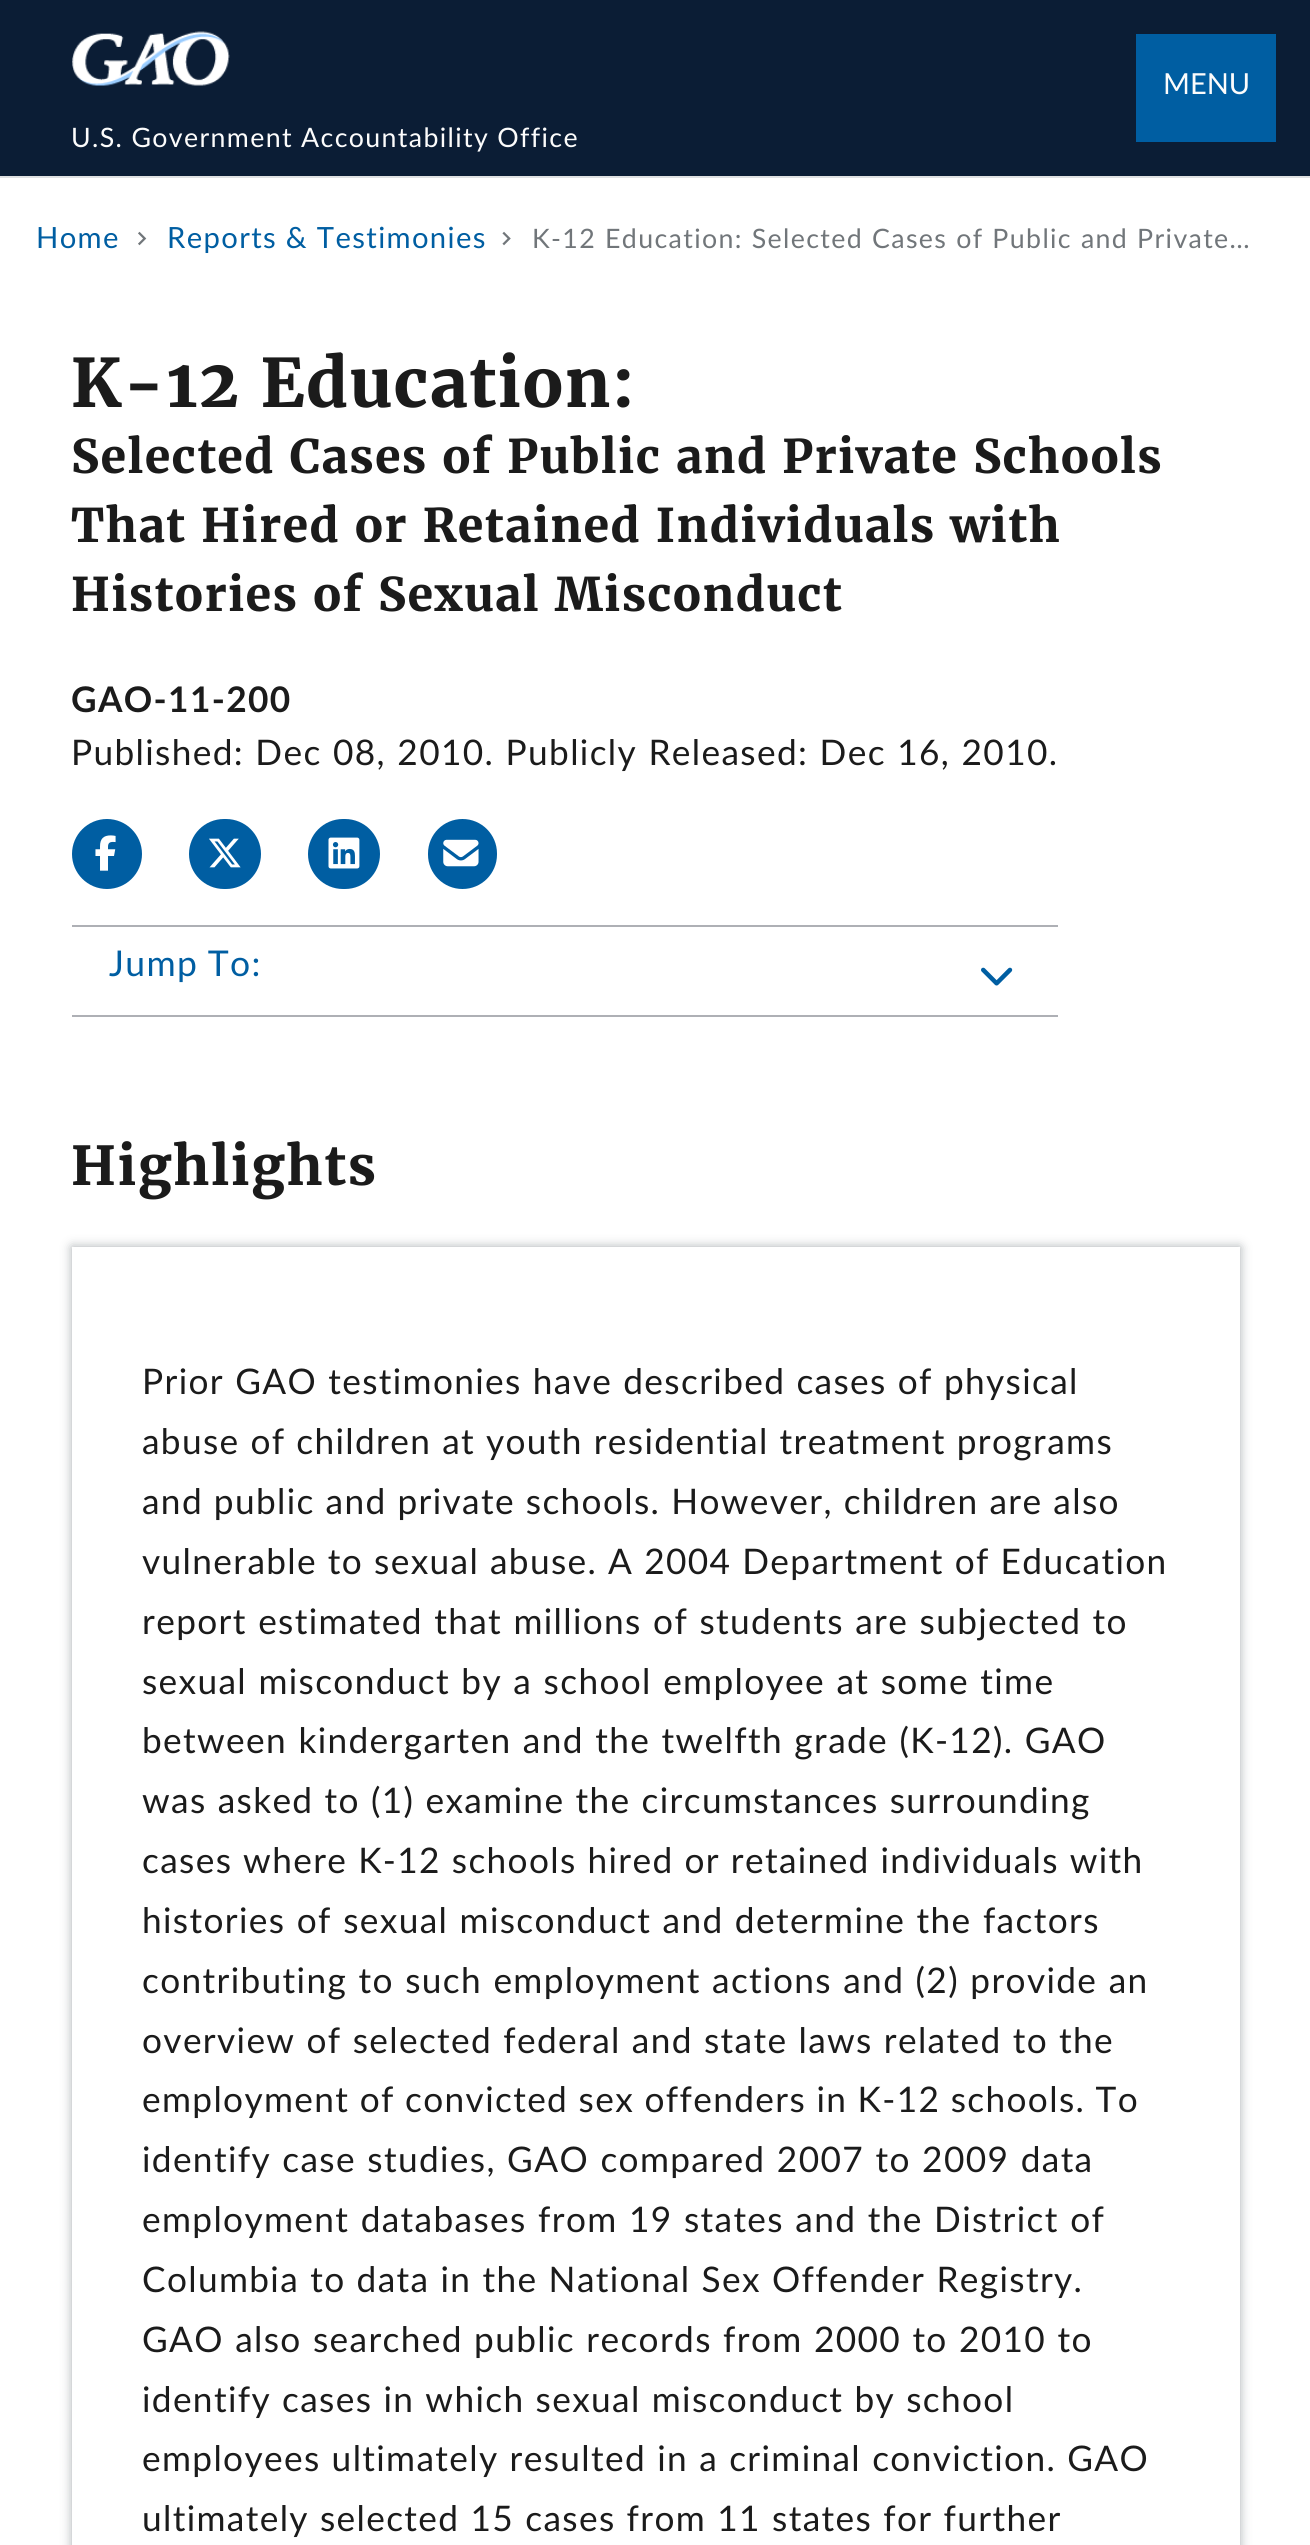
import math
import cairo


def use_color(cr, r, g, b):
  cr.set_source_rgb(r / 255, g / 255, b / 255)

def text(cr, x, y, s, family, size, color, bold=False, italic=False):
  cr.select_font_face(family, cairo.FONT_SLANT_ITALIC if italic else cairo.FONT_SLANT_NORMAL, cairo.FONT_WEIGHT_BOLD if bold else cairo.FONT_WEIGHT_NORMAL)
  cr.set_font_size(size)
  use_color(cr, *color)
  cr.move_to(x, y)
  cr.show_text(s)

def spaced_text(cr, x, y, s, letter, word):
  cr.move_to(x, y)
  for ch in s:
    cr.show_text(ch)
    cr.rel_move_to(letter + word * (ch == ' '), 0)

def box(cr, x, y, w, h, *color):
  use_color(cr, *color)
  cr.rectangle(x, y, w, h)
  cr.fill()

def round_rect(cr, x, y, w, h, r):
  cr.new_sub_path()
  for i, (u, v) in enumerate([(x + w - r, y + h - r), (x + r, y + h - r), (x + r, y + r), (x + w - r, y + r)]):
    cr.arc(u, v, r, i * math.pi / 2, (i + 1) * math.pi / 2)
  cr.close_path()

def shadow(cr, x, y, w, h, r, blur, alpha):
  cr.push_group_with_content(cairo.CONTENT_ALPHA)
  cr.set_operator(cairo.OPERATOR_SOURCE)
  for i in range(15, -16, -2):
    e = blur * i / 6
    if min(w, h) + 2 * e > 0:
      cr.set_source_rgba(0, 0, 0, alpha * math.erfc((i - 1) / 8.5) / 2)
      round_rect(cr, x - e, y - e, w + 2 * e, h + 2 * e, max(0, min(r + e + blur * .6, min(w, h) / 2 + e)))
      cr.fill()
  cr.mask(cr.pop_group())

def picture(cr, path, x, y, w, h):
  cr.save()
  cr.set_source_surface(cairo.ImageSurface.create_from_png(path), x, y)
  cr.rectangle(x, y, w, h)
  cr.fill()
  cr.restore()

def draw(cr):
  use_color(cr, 255, 255, 255)
  cr.paint()
  box(cr, 0, 0, 1310, 176, 11, 29, 53)
  box(cr, 0, 176, 1310, 2, 223, 225, 226)
  box(cr, 1136, 34, 140, 108, 0, 94, 162)
  picture(cr, "img_01.png", 72, 31, 158, 55)
  picture(cr, "img_02.png", 138, 231, 9, 15)
  picture(cr, "img_03.png", 502, 231, 9, 15)
  cr.arc(107, 854, 35, 0, 2 * math.pi)
  cr.fill()
  picture(cr, "img_04.png", 95, 835, 21, 36)
  round_rect(cr, 189, 819, 72, 70, 35)
  cr.fill()
  picture(cr, "img_05.png", 209, 838, 32, 30)
  round_rect(cr, 308, 819, 72, 70, 35)
  cr.fill()
  picture(cr, "img_06.png", 328, 837, 32, 32)
  round_rect(cr, 428, 819, 69, 70, 34.5)
  cr.fill()
  picture(cr, "img_07.png", 443, 839, 36, 28)
  box(cr, 72, 925, 986, 2, 174, 176, 181)
  box(cr, 72, 1015, 986, 2, 174, 176, 181)
  picture(cr, "img_08.png", 981, 967, 32, 19)
  cr.save()
  cr.set_fill_rule(cairo.FILL_RULE_EVEN_ODD)
  cr.new_path()
  cr.move_to(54, 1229)
  cr.line_to(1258, 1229)
  cr.line_to(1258, 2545)
  cr.line_to(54, 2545)
  cr.close_path()
  cr.move_to(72, 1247)
  cr.line_to(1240, 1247)
  cr.line_to(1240, 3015)
  cr.line_to(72, 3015)
  cr.close_path()
  cr.clip()
  use_color(cr, 169, 174, 177)
  shadow(cr, 72, 1247, 1168, 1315, 0, 5.5, 1)
  cr.restore()
  text(cr, 1163, 94, "MENU", "Lato", 29, (252, 252, 252))
  cr.set_font_size(26.75)
  spaced_text(cr, 71, 147, "U.S. Government Accountability Office", 1.35, 0)
  cr.set_font_size(29.25)
  use_color(cr, 0, 94, 162)
  spaced_text(cr, 36, 248, "Home", 1.35, 0)
  spaced_text(cr, 167, 248, "Reports & Testimonies", 1.35, 0)
  cr.set_font_size(26.75)
  use_color(cr, 113, 118, 122)
  spaced_text(cr, 532, 248, "K-12 Education: Selected Cases of Public and Private…", 1.35, 0.75)
  cr.select_font_face("Merriweather", cairo.FONT_SLANT_NORMAL, cairo.FONT_WEIGHT_BOLD)
  cr.set_font_size(66.75)
  use_color(cr, 27, 27, 27)
  spaced_text(cr, 71, 407, "K-12 Education:", 1.35, 1.5)
  cr.set_font_size(46.3)
  spaced_text(cr, 71, 473, "Selected Cases of Public and Private Schools", 1.35, 1.5)
  spaced_text(cr, 71, 542, "That Hired or Retained Individuals with", 1.35, 1.5)
  spaced_text(cr, 71, 611, "Histories of Sexual Misconduct", 1.35, 1.5)
  cr.select_font_face("Lato", cairo.FONT_SLANT_NORMAL, cairo.FONT_WEIGHT_BOLD)
  cr.set_font_size(35.25)
  spaced_text(cr, 71, 712, "GAO-11-200", 1.35, 0)
  cr.select_font_face("Lato")
  spaced_text(cr, 71, 765, "Published: Dec 08, 2010. Publicly Released: Dec 16, 2010.", 1.35, 1)
  cr.set_font_size(35.5)
  use_color(cr, 0, 94, 162)
  spaced_text(cr, 109, 976, "Jump To:", 1.35, -1)
  cr.select_font_face("Merriweather", cairo.FONT_SLANT_NORMAL, cairo.FONT_WEIGHT_BOLD)
  cr.set_font_size(53.5)
  use_color(cr, 27, 27, 27)
  spaced_text(cr, 71, 1185, "Highlights", 1.6, 0)
  cr.select_font_face("Lato")
  cr.set_font_size(35.25)
  spaced_text(cr, 142, 1394, "Prior GAO testimonies have described cases of physical", 1.35, 0.75)
  spaced_text(cr, 142, 1454, "abuse of children at youth residential treatment programs", 1.35, 0.5)
  spaced_text(cr, 142, 1514, "and public and private schools. However, children are also", 1.35, 0.5)
  spaced_text(cr, 142, 1574, "vulnerable to sexual abuse. A 2004 Department of Education", 1.35, 0.5)
  spaced_text(cr, 142, 1634, "report estimated that millions of students are subjected to", 1.35, 1)
  spaced_text(cr, 142, 1694, "sexual misconduct by a school employee at some time", 1.35, 1)
  spaced_text(cr, 142, 1753, "between kindergarten and the twelfth grade (K-12). GAO", 1.35, 1)
  spaced_text(cr, 142, 1813, "was asked to (1) examine the circumstances surrounding", 1.35, 0.75)
  spaced_text(cr, 142, 1873, "cases where K-12 schools hired or retained individuals with", 1.35, 0.5)
  spaced_text(cr, 142, 1933, "histories of sexual misconduct and determine the factors", 1.35, 1)
  spaced_text(cr, 142, 1993, "contributing to such employment actions and (2) provide an", 1.35, 1)
  spaced_text(cr, 142, 2053, "overview of selected federal and state laws related to the", 1.35, 0.75)
  spaced_text(cr, 142, 2112, "employment of convicted sex offenders in K-12 schools. To", 1.35, 0)
  spaced_text(cr, 142, 2172, "identify case studies, GAO compared 2007 to 2009 data", 1.35, 1)
  spaced_text(cr, 142, 2232, "employment databases from 19 states and the District of", 1.35, 1)
  spaced_text(cr, 142, 2292, "Columbia to data in the National Sex Offender Registry.", 1.35, 0.75)
  spaced_text(cr, 142, 2352, "GAO also searched public records from 2000 to 2010 to", 1.35, 0.9)
  spaced_text(cr, 142, 2412, "identify cases in which sexual misconduct by school", 1.35, 0.75)
  spaced_text(cr, 142, 2471, "employees ultimately resulted in a criminal conviction. GAO", 1.35, 0.75)
  spaced_text(cr, 142, 2531, "ultimately selected 15 cases from 11 states for further", 1.35, 0.75)


surface = cairo.ImageSurface(cairo.FORMAT_RGB24, 1310, 2545)
cr = cairo.Context(surface)
options = cairo.FontOptions()
options.set_hint_metrics(cairo.HINT_METRICS_OFF)
options.set_hint_style(cairo.HINT_STYLE_NONE)
cr.set_font_options(options)
cr.set_miter_limit(4)
draw(cr)
surface.write_to_png("out.png")
